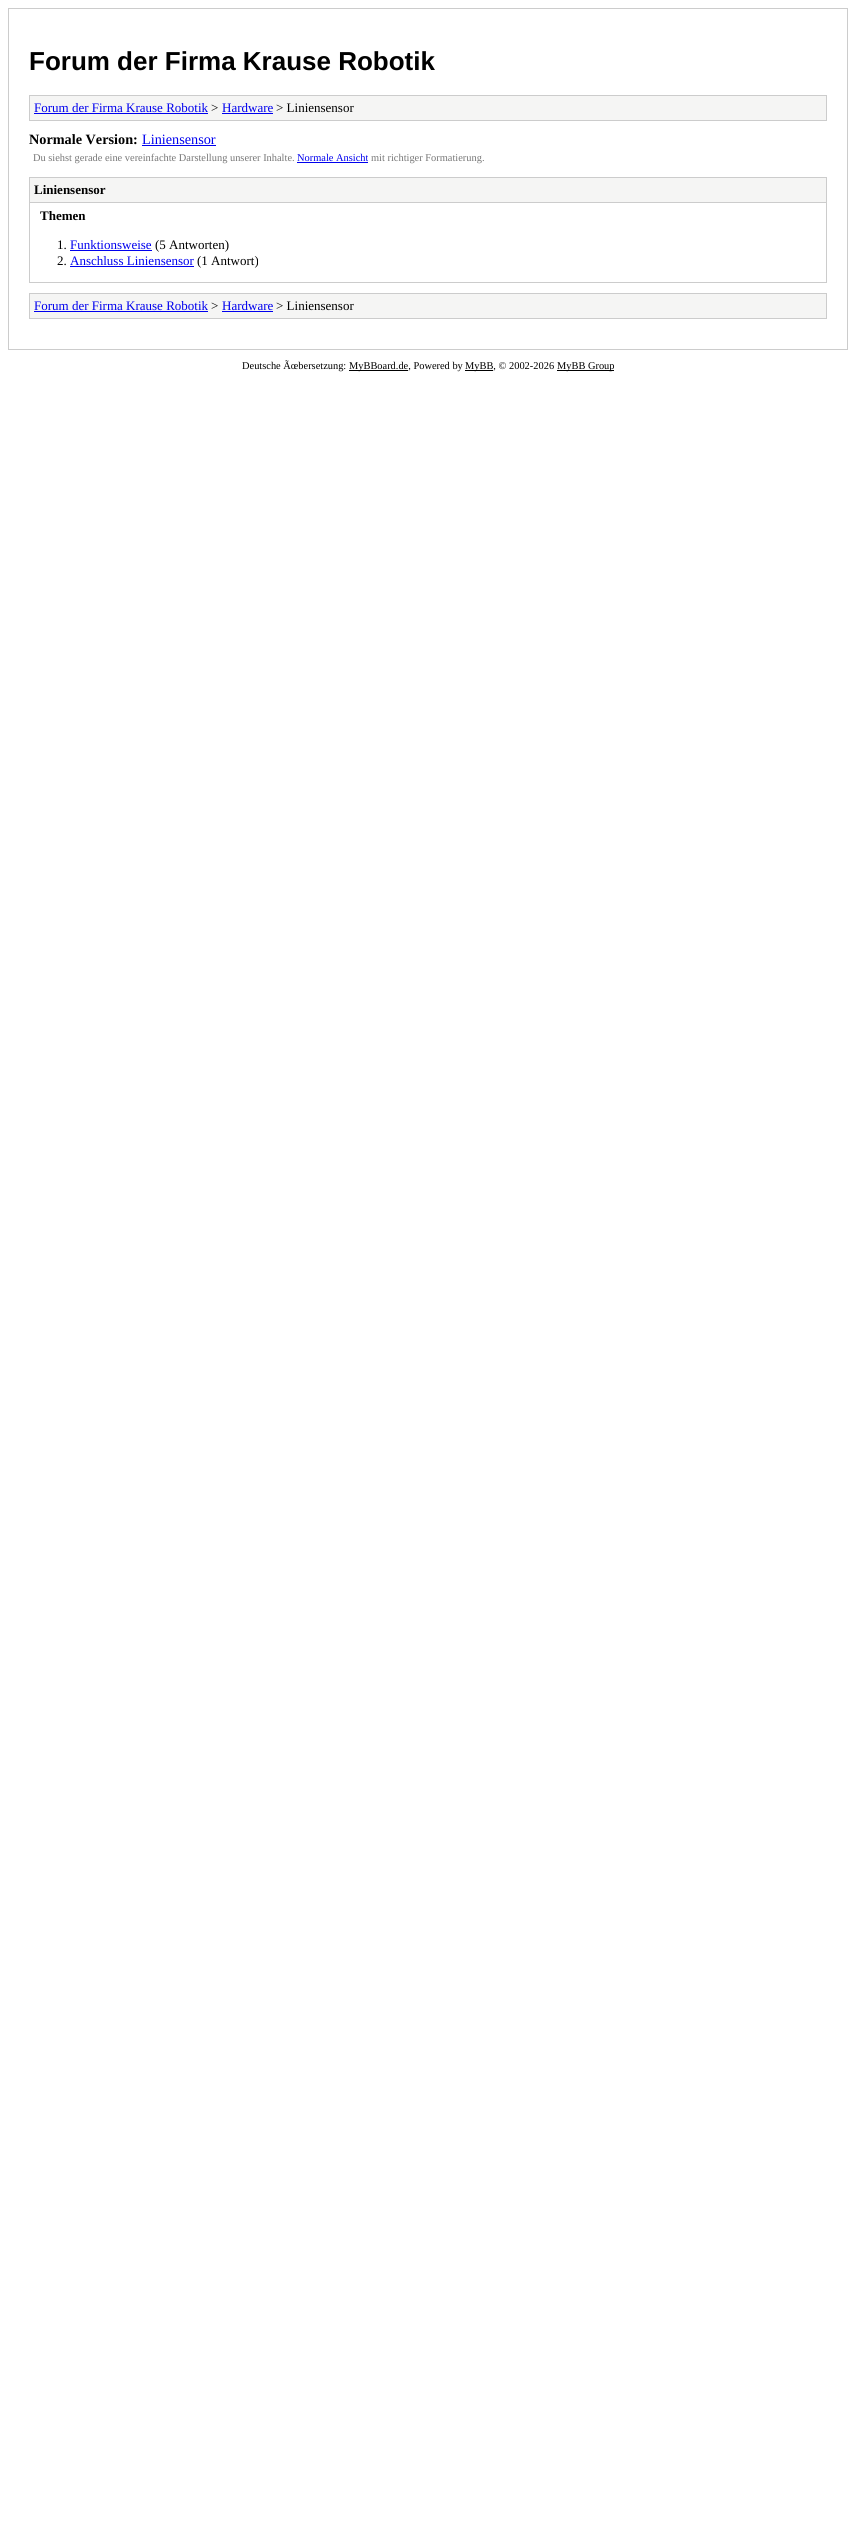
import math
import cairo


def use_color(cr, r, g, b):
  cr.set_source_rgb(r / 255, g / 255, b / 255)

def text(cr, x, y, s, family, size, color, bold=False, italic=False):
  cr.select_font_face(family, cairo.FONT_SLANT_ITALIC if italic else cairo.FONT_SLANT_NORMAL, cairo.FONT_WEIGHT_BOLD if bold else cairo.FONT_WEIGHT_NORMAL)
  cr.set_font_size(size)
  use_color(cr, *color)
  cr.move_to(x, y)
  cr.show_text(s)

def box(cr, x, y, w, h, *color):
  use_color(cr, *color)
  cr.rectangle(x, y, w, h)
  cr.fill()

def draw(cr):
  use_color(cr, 255, 255, 255)
  cr.paint()
  cr.rectangle(8.5, 8.5, 839, 341)
  use_color(cr, 204, 204, 204)
  cr.set_line_width(1)
  cr.stroke()
  use_color(cr, 245, 245, 244)
  cr.rectangle(29.5, 95.5, 797, 25)
  cr.fill_preserve()
  use_color(cr, 204, 204, 204)
  cr.stroke()
  box(cr, 34, 113, 174, 1, 0, 0, 238)
  box(cr, 222, 113, 51, 1, 0, 0, 238)
  box(cr, 142, 145, 74, 1, 0, 0, 238)
  box(cr, 297, 162, 71, 1, 0, 0, 238)
  cr.rectangle(29.5, 177.5, 797, 105)
  use_color(cr, 204, 204, 204)
  cr.stroke()
  box(cr, 30, 178, 796, 24, 245, 245, 244)
  box(cr, 30, 202, 796, 1, 204, 204, 204)
  box(cr, 70, 250, 82, 1, 0, 0, 238)
  box(cr, 70, 266, 124, 1, 0, 0, 238)
  use_color(cr, 245, 245, 244)
  cr.rectangle(29.5, 293.5, 797, 25)
  cr.fill_preserve()
  use_color(cr, 204, 204, 204)
  cr.stroke()
  box(cr, 34, 311, 174, 1, 0, 0, 238)
  box(cr, 222, 311, 51, 1, 0, 0, 238)
  box(cr, 349, 370, 59, 1, 0, 0, 0)
  box(cr, 465, 370, 28, 1, 0, 0, 0)
  box(cr, 557, 370, 57, 1, 0, 0, 0)
  text(cr, 29, 70, "Forum der Firma Krause Robotik", "Liberation Sans", 26, (0, 0, 0), bold=True)
  text(cr, 34, 112, "Forum der Firma Krause Robotik", "Liberation Serif", 13, (0, 0, 238))
  text(cr, 211, 112, ">", "Liberation Serif", 13, (0, 0, 0))
  text(cr, 222, 112, "Hardware", "Liberation Serif", 13, (0, 0, 238))
  text(cr, 276, 112, "> Liniensensor", "Liberation Serif", 13, (0, 0, 0))
  text(cr, 29, 144, "Normale Version:", "Liberation Serif", 14.25, (0, 0, 0), bold=True)
  text(cr, 142, 144, "Liniensensor", "Liberation Serif", 14.25, (0, 0, 238))
  text(cr, 33, 161, "Du siehst gerade eine vereinfachte Darstellung unserer Inhalte.", "Liberation Serif", 10.4, (119, 119, 119))
  text(cr, 297, 161, "Normale Ansicht", "Liberation Serif", 10.4, (0, 0, 238))
  text(cr, 371, 161, "mit richtiger Formatierung.", "Liberation Serif", 10.4, (119, 119, 119))
  text(cr, 34, 194, "Liniensensor", "Liberation Serif", 13, (0, 0, 0), bold=True)
  text(cr, 40, 220, "Themen", "Liberation Serif", 13, (0, 0, 0), bold=True)
  text(cr, 57, 249, "1.", "Liberation Serif", 13, (0, 0, 0))
  text(cr, 70, 249, "Funktionsweise", "Liberation Serif", 13, (0, 0, 238))
  text(cr, 155, 249, "(5 Antworten)", "Liberation Serif", 13, (0, 0, 0))
  text(cr, 57, 265, "2.", "Liberation Serif", 13, (0, 0, 0))
  text(cr, 70, 265, "Anschluss Liniensensor", "Liberation Serif", 13, (0, 0, 238))
  text(cr, 197, 265, "(1 Antwort)", "Liberation Serif", 13, (0, 0, 0))
  text(cr, 34, 310, "Forum der Firma Krause Robotik", "Liberation Serif", 13, (0, 0, 238))
  text(cr, 211, 310, ">", "Liberation Serif", 13, (0, 0, 0))
  text(cr, 222, 310, "Hardware", "Liberation Serif", 13, (0, 0, 238))
  text(cr, 276, 310, "> Liniensensor", "Liberation Serif", 13, (0, 0, 0))
  text(cr, 242, 369, "Deutsche Ãœbersetzung:", "Liberation Serif", 10.4, (0, 0, 0))
  text(cr, 349, 369, "MyBBoard.de, Powered by", "Liberation Serif", 10.4, (0, 0, 0))
  text(cr, 465, 369, "MyBB, © 2002-2026", "Liberation Serif", 10.4, (0, 0, 0))
  text(cr, 557, 369, "MyBB Group", "Liberation Serif", 10.4, (0, 0, 0))


surface = cairo.ImageSurface(cairo.FORMAT_RGB24, 856, 2526)
cr = cairo.Context(surface)
options = cairo.FontOptions()
options.set_hint_metrics(cairo.HINT_METRICS_OFF)
options.set_hint_style(cairo.HINT_STYLE_NONE)
cr.set_font_options(options)
cr.set_miter_limit(4)
draw(cr)
surface.write_to_png("out.png")
